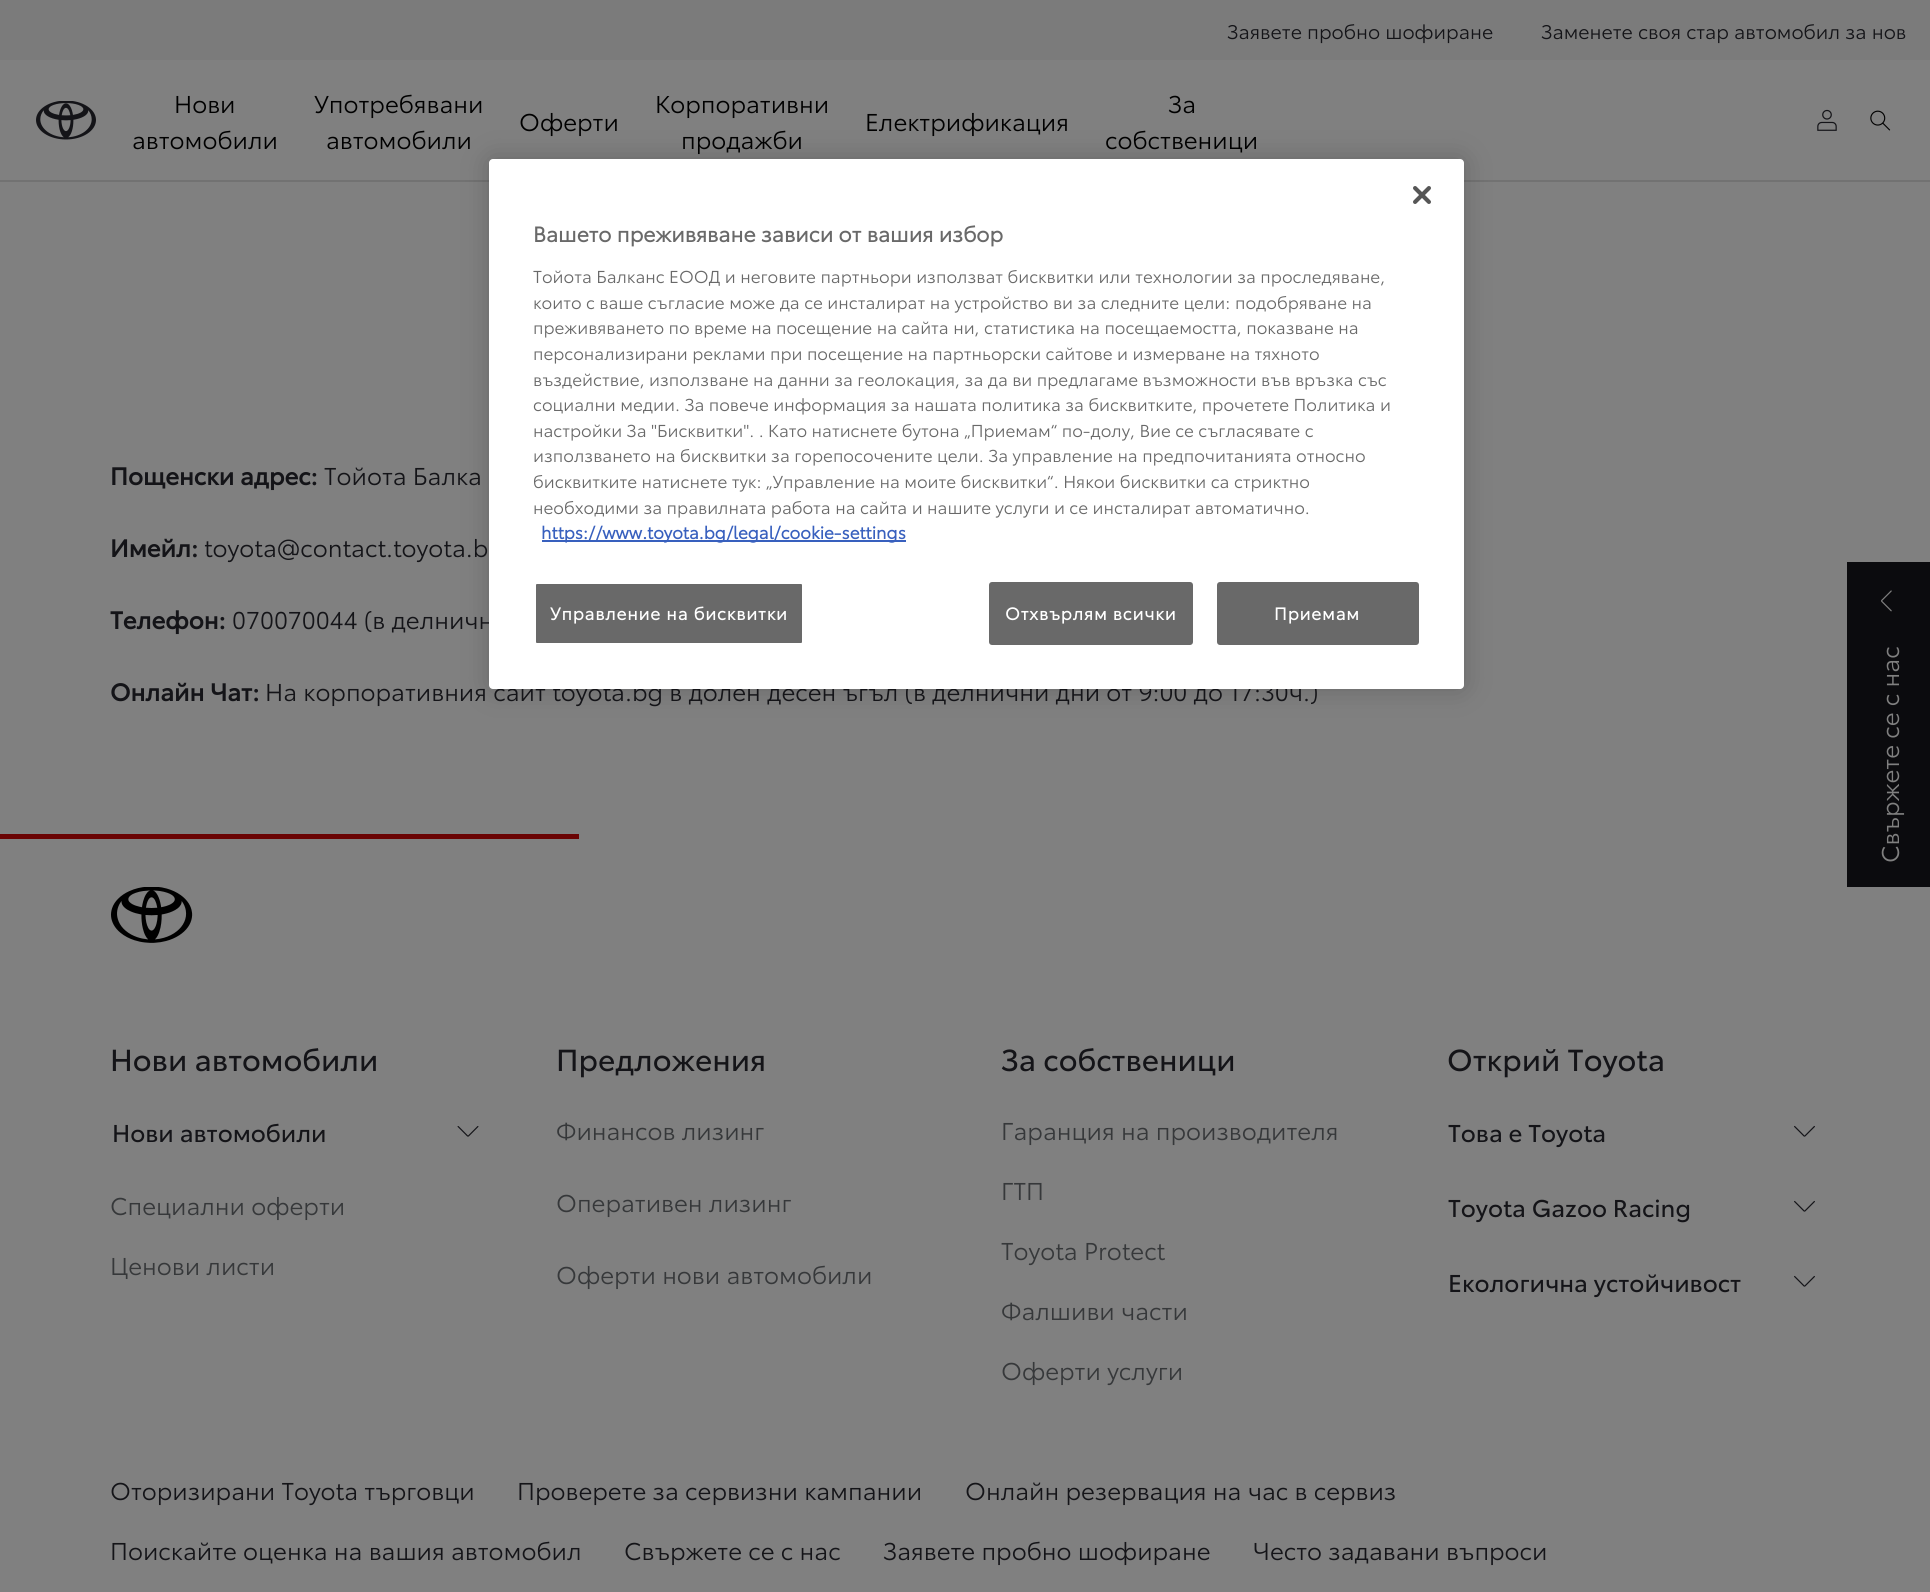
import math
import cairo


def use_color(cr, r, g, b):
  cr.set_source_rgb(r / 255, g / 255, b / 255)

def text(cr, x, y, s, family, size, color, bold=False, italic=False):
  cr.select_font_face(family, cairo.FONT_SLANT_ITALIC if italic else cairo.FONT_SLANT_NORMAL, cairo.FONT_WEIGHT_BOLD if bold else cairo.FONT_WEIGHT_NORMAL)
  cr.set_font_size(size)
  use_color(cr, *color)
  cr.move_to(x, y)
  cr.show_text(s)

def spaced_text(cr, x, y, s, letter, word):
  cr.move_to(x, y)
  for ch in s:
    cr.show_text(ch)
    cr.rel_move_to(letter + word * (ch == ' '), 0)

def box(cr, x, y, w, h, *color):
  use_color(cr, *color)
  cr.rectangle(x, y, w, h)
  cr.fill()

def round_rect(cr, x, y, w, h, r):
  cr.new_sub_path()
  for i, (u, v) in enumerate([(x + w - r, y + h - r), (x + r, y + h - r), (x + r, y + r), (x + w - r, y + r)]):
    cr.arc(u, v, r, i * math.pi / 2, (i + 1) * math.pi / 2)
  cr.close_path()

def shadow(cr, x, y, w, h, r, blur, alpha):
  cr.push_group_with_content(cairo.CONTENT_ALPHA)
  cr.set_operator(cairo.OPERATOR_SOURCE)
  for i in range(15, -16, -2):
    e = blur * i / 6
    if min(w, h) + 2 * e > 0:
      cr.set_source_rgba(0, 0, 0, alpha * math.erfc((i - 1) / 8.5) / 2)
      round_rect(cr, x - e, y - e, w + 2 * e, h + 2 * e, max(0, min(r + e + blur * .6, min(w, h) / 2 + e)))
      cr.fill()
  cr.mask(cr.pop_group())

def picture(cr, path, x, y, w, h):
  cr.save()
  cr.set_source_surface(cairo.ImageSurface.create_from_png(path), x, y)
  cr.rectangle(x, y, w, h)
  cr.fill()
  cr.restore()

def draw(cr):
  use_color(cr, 128, 128, 128)
  cr.paint()
  box(cr, 0, 0, 1930, 60, 123, 123, 123)
  picture(cr, "img_01.png", 36, 101, 60, 39)
  picture(cr, "img_02.png", 1817, 109, 20, 22)
  picture(cr, "img_03.png", 1870, 110, 21, 21)
  box(cr, 0, 180, 1930, 2, 114, 114, 114)
  use_color(cr, 0, 0, 0)
  shadow(cr, 489, 159, 975, 530, 4, 13.5, 0.2)
  box(cr, 1847, 562, 83, 325, 11, 11, 14)
  picture(cr, "img_05.png", 1881, 590, 11, 22)
  box(cr, 0, 834, 579, 5, 106, 3, 3)
  picture(cr, "img_06.png", 111, 887, 82, 56)
  picture(cr, "img_07.png", 457, 1126, 22, 11)
  picture(cr, "img_08.png", 1794, 1125, 21, 12)
  picture(cr, "img_08.png", 1794, 1200, 21, 12)
  picture(cr, "img_08.png", 1794, 1275, 21, 12)
  text(cr, 1227, 39, "Заявете пробно шофиране", "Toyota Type", 19.5, (20, 20, 24))
  text(cr, 1541, 39, "Заменете своя стар автомобил за нов", "Toyota Type", 19.5, (20, 20, 24))
  text(cr, 174, 113, "Нови", "Toyota Type", 24, (0, 0, 0))
  text(cr, 132, 149, "автомобили", "Toyota Type", 24, (0, 0, 0))
  text(cr, 314, 113, "Употребявани", "Toyota Type", 24, (0, 0, 0))
  text(cr, 326, 149, "автомобили", "Toyota Type", 24, (0, 0, 0))
  text(cr, 519, 131, "Оферти", "Toyota Type", 24, (0, 0, 0))
  text(cr, 655, 113, "Корпоративни", "Toyota Type", 24, (0, 0, 0))
  text(cr, 681, 149, "продажби", "Toyota Type", 24, (0, 0, 0))
  text(cr, 865, 131, "Електрификация", "Toyota Type", 24, (0, 0, 0))
  text(cr, 1168, 113, "За", "Toyota Type", 24, (0, 0, 0))
  text(cr, 1105, 149, "собственици", "Toyota Type", 24, (0, 0, 0))
  text(cr, 110, 485, "Пощенски адрес:", "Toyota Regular", 24, (20, 20, 24), bold=True)
  text(cr, 324, 485, "Тойота Балка", "Toyota Type", 24, (20, 20, 24))
  text(cr, 110, 557, "Имейл:", "Toyota Regular", 24, (20, 20, 24), bold=True)
  text(cr, 204, 557, "toyota@contact.toyota.b", "Toyota Type", 24, (20, 20, 24))
  text(cr, 110, 629, "Телефон:", "Toyota Regular", 24, (20, 20, 24), bold=True)
  text(cr, 232, 629, "070070044 (в делничн", "Toyota Type", 24, (20, 20, 24))
  text(cr, 110, 701, "Онлайн Чат:", "Toyota Regular", 24, (20, 20, 24), bold=True)
  text(cr, 265, 701, "На корпоративния сайт toyota.bg в долен десен ъгъл (в делнични дни от 9:00 до 17:30ч.)", "Toyota Type", 24, (20, 20, 24))
  use_color(cr, 255, 255, 255)
  round_rect(cr, 489, 159, 975, 530, 4)
  cr.fill()
  picture(cr, "img_04.png", 1413, 186, 18, 18)
  use_color(cr, 105, 105, 105)
  round_rect(cr, 1218, 583, 200, 61, 2)
  cr.fill_preserve()
  cr.stroke()
  cr.select_font_face("Toyota Type", cairo.FONT_SLANT_NORMAL, cairo.FONT_WEIGHT_BOLD)
  cr.set_font_size(17.07)
  use_color(cr, 255, 255, 255)
  spaced_text(cr, 1274, 620, "Приемам", 0.85, 0)
  use_color(cr, 105, 105, 105)
  round_rect(cr, 990, 583, 202, 61, 2)
  cr.fill_preserve()
  cr.stroke()
  use_color(cr, 255, 255, 255)
  spaced_text(cr, 1005, 620, "Отхвърлям всички", 0.85, 0)
  use_color(cr, 105, 105, 105)
  round_rect(cr, 535, 583, 268, 61, 2)
  cr.fill_preserve()
  use_color(cr, 255, 255, 255)
  cr.stroke()
  spaced_text(cr, 550, 620, "Управление на бисквитки", 0.85, 0)
  box(cr, 542, 540, 364, 2, 56, 96, 190)
  text(cr, 541, 539, "https://www.toyota.bg/legal/cookie-settings", "Toyota Type", 17.07, (56, 96, 190), bold=True)
  text(cr, 533, 514, "необходими за правилната работа на сайта и нашите услуги и се инсталират автоматично.", "Toyota Type", 17.07, (105, 105, 105))
  text(cr, 533, 488, "бисквитките натиснете тук: „Управление на моите бисквитки“. Някои бисквитки са стриктно", "Toyota Type", 17.07, (105, 105, 105))
  text(cr, 533, 462, "използването на бисквитки за горепосочените цели. За управление на предпочитанията относно", "Toyota Type", 17.07, (105, 105, 105))
  text(cr, 533, 437, "настройки За \"Бисквитки\". . Като натиснете бутона „Приемам“ по-долу, Вие се съгласявате с", "Toyota Type", 17.07, (105, 105, 105))
  text(cr, 533, 411, "социални медии. За повече информация за нашата политика за бисквитките, прочетете Политика и", "Toyota Type", 17.07, (105, 105, 105))
  text(cr, 533, 386, "въздействие, използване на данни за геолокация, за да ви предлагаме възможности във връзка със", "Toyota Type", 17.07, (105, 105, 105))
  text(cr, 533, 360, "персонализирани реклами при посещение на партньорски сайтове и измерване на тяхното", "Toyota Type", 17.07, (105, 105, 105))
  text(cr, 533, 334, "преживяването по време на посещение на сайта ни, статистика на посещаемостта, показване на", "Toyota Type", 17.07, (105, 105, 105))
  text(cr, 1235, 309, "подобряване на", "Toyota Type", 17.07, (105, 105, 105))
  text(cr, 533, 309, "които с ваше съгласие може да се инсталират на устройство ви за следните цели:", "Toyota Type", 17.07, (105, 105, 105))
  text(cr, 533, 283, "Тойота Балканс ЕООД и неговите партньори използват бисквитки или технологии за проследяване,", "Toyota Type", 17.07, (105, 105, 105))
  text(cr, 533, 242, "Вашето преживяване зависи от вашия избор", "Toyota Type", 21, (105, 105, 105), bold=True)
  cr.save()
  cr.translate(1899, 863)
  cr.rotate(-90 * math.pi / 180)
  text(cr, 0, 0, "Свържете се с нас", "Toyota Type", 24, (128, 128, 128))
  cr.restore()
  text(cr, 110, 1071, "Нови автомобили", "Toyota Regular", 30, (20, 20, 24))
  text(cr, 112, 1142, "Нови автомобили", "Toyota Regular", 24, (20, 20, 24))
  text(cr, 110, 1215, "Специални оферти", "Toyota Type", 24, (54, 56, 58))
  text(cr, 110, 1275, "Ценови листи", "Toyota Type", 24, (54, 56, 58))
  text(cr, 556, 1071, "Предложения", "Toyota Regular", 30, (20, 20, 24))
  text(cr, 556, 1140, "Финансов лизинг", "Toyota Type", 24, (54, 56, 58))
  text(cr, 556, 1212, "Оперативен лизинг", "Toyota Type", 24, (54, 56, 58))
  text(cr, 556, 1284, "Оферти нови автомобили", "Toyota Type", 24, (54, 56, 58))
  text(cr, 1001, 1071, "За собственици", "Toyota Regular", 30, (20, 20, 24))
  text(cr, 1001, 1140, "Гаранция на производителя", "Toyota Type", 24, (54, 56, 58))
  text(cr, 1001, 1200, "ГТП", "Toyota Type", 24, (54, 56, 58))
  text(cr, 1001, 1260, "Toyota Protect", "Toyota Type", 24, (54, 56, 58))
  text(cr, 1001, 1320, "Фалшиви части", "Toyota Type", 24, (54, 56, 58))
  text(cr, 1001, 1380, "Оферти услуги", "Toyota Type", 24, (54, 56, 58))
  text(cr, 1447, 1071, "Открий Toyota", "Toyota Regular", 30, (20, 20, 24))
  text(cr, 1448, 1142, "Това е Toyota", "Toyota Regular", 24, (20, 20, 24))
  text(cr, 1448, 1217, "Toyota Gazoo Racing", "Toyota Regular", 24, (20, 20, 24))
  text(cr, 1448, 1292, "Екологична устойчивост", "Toyota Regular", 24, (20, 20, 24))
  text(cr, 110, 1500, "Оторизирани Toyota търговци", "Toyota Type", 24, (20, 20, 24))
  text(cr, 517, 1500, "Проверете за сервизни кампании", "Toyota Type", 24, (20, 20, 24))
  text(cr, 965, 1500, "Онлайн резервация на час в сервиз", "Toyota Type", 24, (20, 20, 24))
  text(cr, 110, 1560, "Поискайте оценка на вашия автомобил", "Toyota Type", 24, (20, 20, 24))
  text(cr, 624, 1560, "Свържете се с нас", "Toyota Type", 24, (20, 20, 24))
  text(cr, 883, 1560, "Заявете пробно шофиране", "Toyota Type", 24, (20, 20, 24))
  text(cr, 1253, 1560, "Често задавани въпроси", "Toyota Type", 24, (20, 20, 24))


surface = cairo.ImageSurface(cairo.FORMAT_RGB24, 1930, 1592)
cr = cairo.Context(surface)
options = cairo.FontOptions()
options.set_hint_metrics(cairo.HINT_METRICS_OFF)
options.set_hint_style(cairo.HINT_STYLE_NONE)
cr.set_font_options(options)
cr.set_miter_limit(4)
draw(cr)
surface.write_to_png("out.png")
